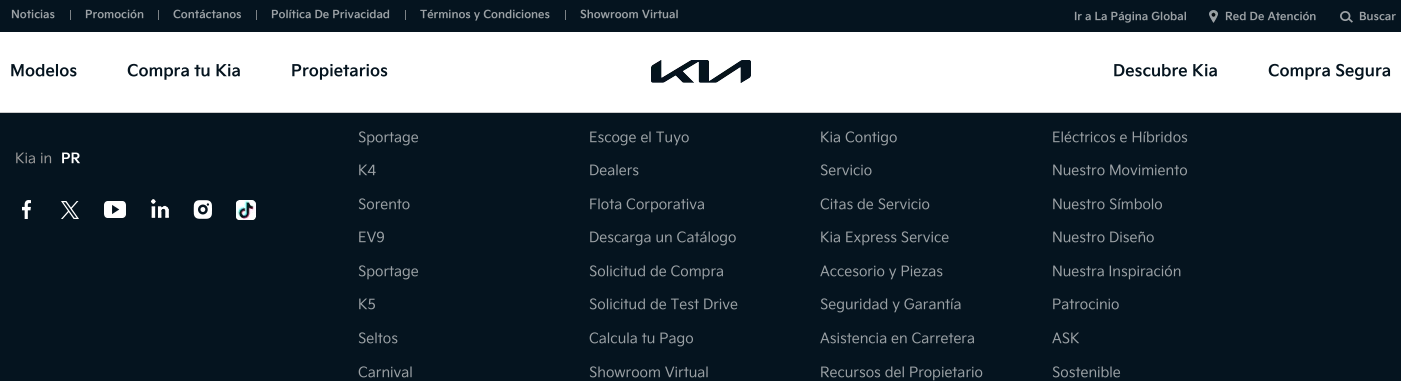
import math
import cairo


def use_color(cr, r, g, b):
  cr.set_source_rgb(r / 255, g / 255, b / 255)

def text(cr, x, y, s, family, size, color, bold=False, italic=False):
  cr.select_font_face(family, cairo.FONT_SLANT_ITALIC if italic else cairo.FONT_SLANT_NORMAL, cairo.FONT_WEIGHT_BOLD if bold else cairo.FONT_WEIGHT_NORMAL)
  cr.set_font_size(size)
  use_color(cr, *color)
  cr.move_to(x, y)
  cr.show_text(s)

def box(cr, x, y, w, h, *color):
  use_color(cr, *color)
  cr.rectangle(x, y, w, h)
  cr.fill()

def picture(cr, path, x, y, w, h):
  cr.save()
  cr.set_source_surface(cairo.ImageSurface.create_from_png(path), x, y)
  cr.rectangle(x, y, w, h)
  cr.fill()
  cr.restore()

def draw(cr):
  use_color(cr, 5, 20, 31)
  cr.paint()
  box(cr, 0, 32, 1401, 80, 255, 255, 255)
  box(cr, 0, 112, 1401, 1, 204, 204, 204)
  box(cr, 70, 10, 1, 10, 124, 130, 134)
  box(cr, 158, 10, 1, 10, 124, 130, 134)
  box(cr, 256, 10, 1, 10, 124, 130, 134)
  box(cr, 405, 10, 1, 10, 124, 130, 134)
  box(cr, 565, 10, 1, 10, 124, 130, 134)
  picture(cr, "img_01.png", 1209, 10, 9, 13)
  picture(cr, "img_02.png", 1340, 11, 13, 12)
  picture(cr, "img_03.png", 651, 60, 100, 23)
  picture(cr, "img_04.png", 22, 200, 9, 19)
  picture(cr, "img_05.png", 61, 201, 18, 18)
  picture(cr, "img_06.png", 104, 201, 22, 17)
  picture(cr, "img_07.png", 151, 199, 18, 19)
  picture(cr, "img_08.png", 193, 200, 19, 19)
  picture(cr, "img_09.png", 236, 200, 20, 20)
  text(cr, 11, 18, "Noticias", "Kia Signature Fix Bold", 11, (155, 161, 165), bold=True)
  text(cr, 85, 18, "Promoción", "Kia Signature Fix Bold", 11, (155, 161, 165), bold=True)
  text(cr, 173, 18, "Contáctanos", "Kia Signature Fix Bold", 11, (155, 161, 165), bold=True)
  text(cr, 271, 18, "Política De Privacidad", "Kia Signature Fix Bold", 11, (155, 161, 165), bold=True)
  text(cr, 420, 18, "Términos y Condiciones", "Kia Signature Fix Bold", 11, (155, 161, 165), bold=True)
  text(cr, 580, 18, "Showroom Virtual", "Kia Signature Fix Bold", 11, (155, 161, 165), bold=True)
  text(cr, 1074, 20, "Ir a La Página Global", "Kia Signature Fix Bold", 11, (155, 161, 165), bold=True)
  text(cr, 1225, 20, "Red De Atención", "Kia Signature Fix Bold", 11, (155, 161, 165), bold=True)
  text(cr, 1359, 20, "Buscar", "Kia Signature Fix Bold", 11, (155, 161, 165), bold=True)
  text(cr, 10, 76, "Modelos", "Kia Signature Fix Bold", 16, (5, 20, 31), bold=True)
  text(cr, 127, 76, "Compra tu Kia", "Kia Signature Fix Bold", 16, (5, 20, 31), bold=True)
  text(cr, 291, 76, "Propietarios", "Kia Signature Fix Bold", 16, (5, 20, 31), bold=True)
  text(cr, 1113, 76, "Descubre Kia", "Kia Signature Fix Bold", 16, (5, 20, 31), bold=True)
  text(cr, 1268, 76, "Compra Segura", "Kia Signature Fix Bold", 16, (5, 20, 31), bold=True)
  text(cr, 15, 163, "Kia in", "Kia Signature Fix", 14, (153, 153, 153))
  text(cr, 61, 163, "PR", "Kia Signature Fix Bold", 14, (255, 255, 255), bold=True)
  text(cr, 358, 142, "Sportage", "Kia Signature Fix", 14, (155, 161, 165))
  text(cr, 358, 175, "K4", "Kia Signature Fix", 14, (155, 161, 165))
  text(cr, 358, 209, "Sorento", "Kia Signature Fix", 14, (155, 161, 165))
  text(cr, 358, 242, "EV9", "Kia Signature Fix", 14, (155, 161, 165))
  text(cr, 358, 276, "Sportage", "Kia Signature Fix", 14, (155, 161, 165))
  text(cr, 358, 309, "K5", "Kia Signature Fix", 14, (155, 161, 165))
  text(cr, 358, 343, "Seltos", "Kia Signature Fix", 14, (155, 161, 165))
  text(cr, 358, 377, "Carnival", "Kia Signature Fix", 14, (155, 161, 165))
  text(cr, 589, 142, "Escoge el Tuyo", "Kia Signature Fix", 14, (155, 161, 165))
  text(cr, 589, 175, "Dealers", "Kia Signature Fix", 14, (155, 161, 165))
  text(cr, 589, 209, "Flota Corporativa", "Kia Signature Fix", 14, (155, 161, 165))
  text(cr, 589, 242, "Descarga un Catálogo", "Kia Signature Fix", 14, (155, 161, 165))
  text(cr, 589, 276, "Solicitud de Compra", "Kia Signature Fix", 14, (155, 161, 165))
  text(cr, 589, 309, "Solicitud de Test Drive", "Kia Signature Fix", 14, (155, 161, 165))
  text(cr, 589, 343, "Calcula tu Pago", "Kia Signature Fix", 14, (155, 161, 165))
  text(cr, 589, 377, "Showroom Virtual", "Kia Signature Fix", 14, (155, 161, 165))
  text(cr, 820, 142, "Kia Contigo", "Kia Signature Fix", 14, (155, 161, 165))
  text(cr, 820, 175, "Servicio", "Kia Signature Fix", 14, (155, 161, 165))
  text(cr, 820, 209, "Citas de Servicio", "Kia Signature Fix", 14, (155, 161, 165))
  text(cr, 820, 242, "Kia Express Service", "Kia Signature Fix", 14, (155, 161, 165))
  text(cr, 820, 276, "Accesorio y Piezas", "Kia Signature Fix", 14, (155, 161, 165))
  text(cr, 820, 309, "Seguridad y Garantía", "Kia Signature Fix", 14, (155, 161, 165))
  text(cr, 820, 343, "Asistencia en Carretera", "Kia Signature Fix", 14, (155, 161, 165))
  text(cr, 820, 377, "Recursos del Propietario", "Kia Signature Fix", 14, (155, 161, 165))
  text(cr, 1052, 142, "Eléctricos e Híbridos", "Kia Signature Fix", 14, (155, 161, 165))
  text(cr, 1052, 175, "Nuestro Movimiento", "Kia Signature Fix", 14, (155, 161, 165))
  text(cr, 1052, 209, "Nuestro Símbolo", "Kia Signature Fix", 14, (155, 161, 165))
  text(cr, 1052, 242, "Nuestro Diseño", "Kia Signature Fix", 14, (155, 161, 165))
  text(cr, 1052, 276, "Nuestra Inspiración", "Kia Signature Fix", 14, (155, 161, 165))
  text(cr, 1052, 309, "Patrocinio", "Kia Signature Fix", 14, (155, 161, 165))
  text(cr, 1052, 343, "ASK", "Kia Signature Fix", 14, (155, 161, 165))
  text(cr, 1052, 377, "Sostenible", "Kia Signature Fix", 14, (155, 161, 165))


surface = cairo.ImageSurface(cairo.FORMAT_RGB24, 1401, 381)
cr = cairo.Context(surface)
options = cairo.FontOptions()
options.set_hint_metrics(cairo.HINT_METRICS_OFF)
options.set_hint_style(cairo.HINT_STYLE_NONE)
cr.set_font_options(options)
cr.set_miter_limit(4)
draw(cr)
surface.write_to_png("out.png")
